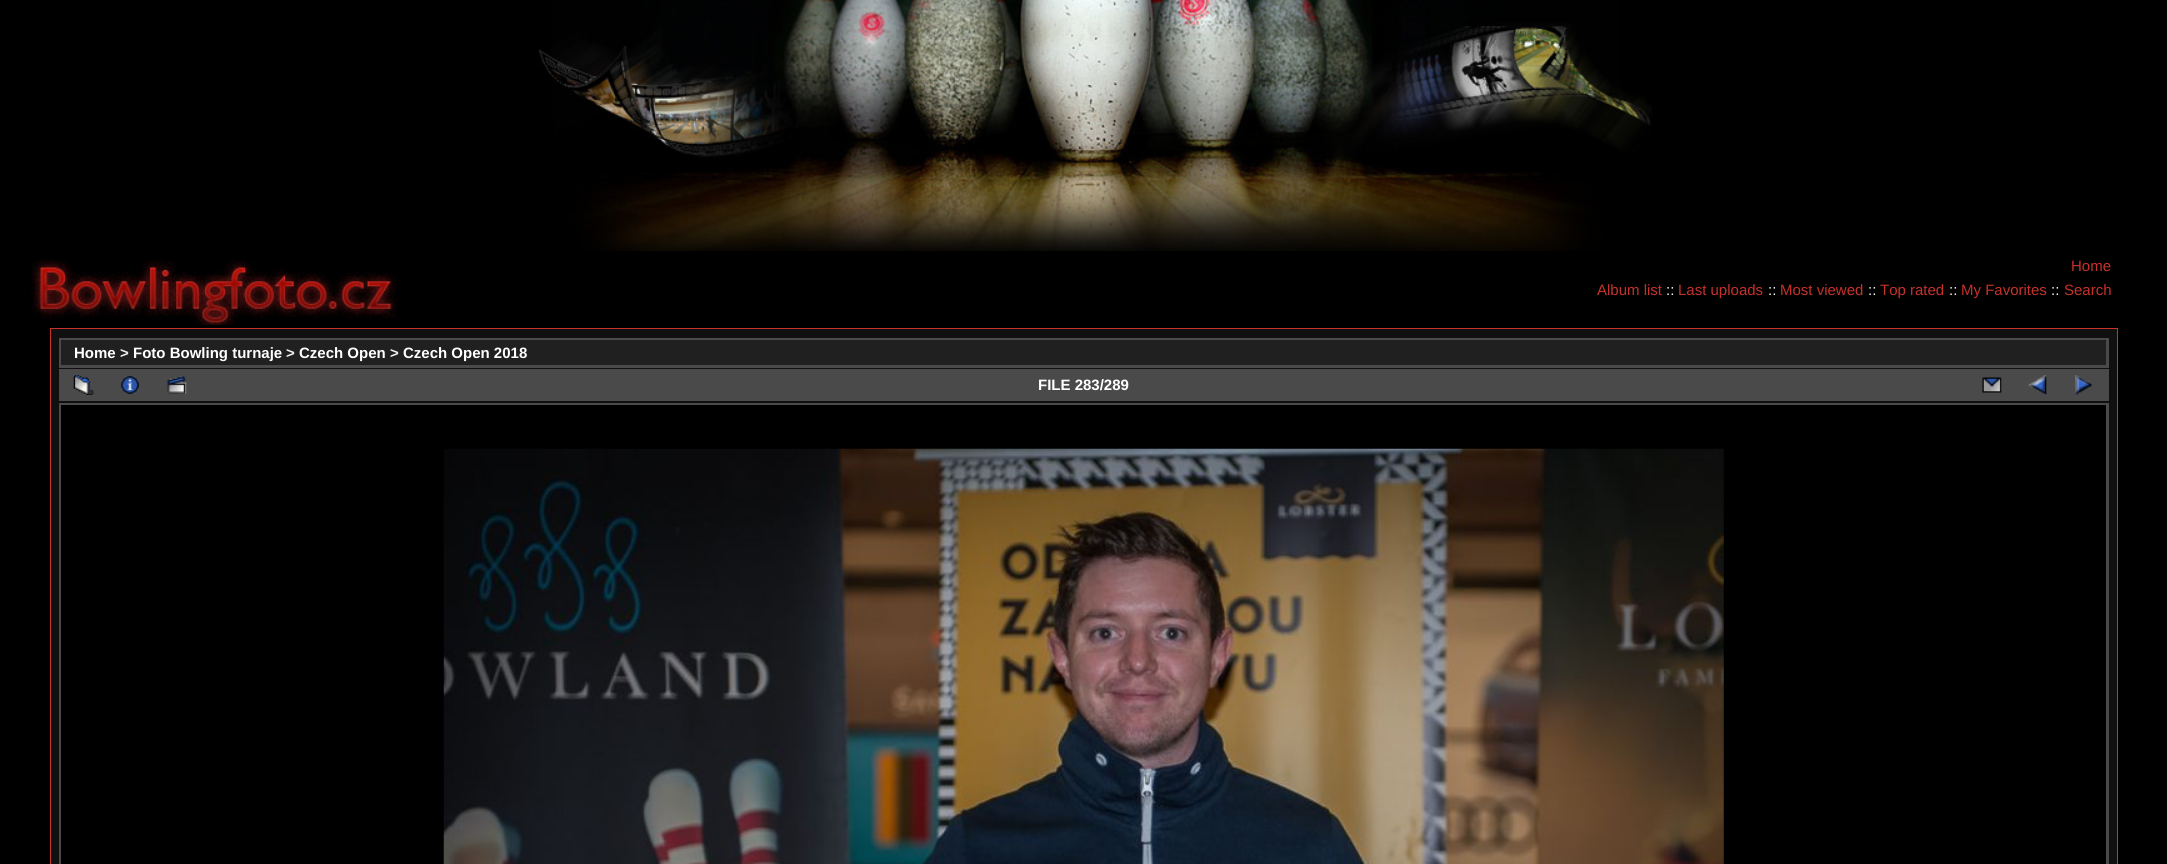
import math
import cairo


def use_color(cr, r, g, b):
  cr.set_source_rgb(r / 255, g / 255, b / 255)

def text(cr, x, y, s, family, size, color, bold=False, italic=False):
  cr.select_font_face(family, cairo.FONT_SLANT_ITALIC if italic else cairo.FONT_SLANT_NORMAL, cairo.FONT_WEIGHT_BOLD if bold else cairo.FONT_WEIGHT_NORMAL)
  cr.set_font_size(size)
  use_color(cr, *color)
  cr.move_to(x, y)
  cr.show_text(s)

def box(cr, x, y, w, h, *color):
  use_color(cr, *color)
  cr.rectangle(x, y, w, h)
  cr.fill()

def picture(cr, path, x, y, w, h):
  cr.save()
  cr.set_source_surface(cairo.ImageSurface.create_from_png(path), x, y)
  cr.rectangle(x, y, w, h)
  cr.fill()
  cr.restore()

def draw(cr):
  use_color(cr, 0, 0, 0)
  cr.paint()
  picture(cr, "img_01.png", 538, 0, 1114, 251)
  picture(cr, "img_02.png", 31, 259, 367, 66)
  use_color(cr, 16, 16, 16)
  cr.rectangle(50.5, 328.5, 2067, 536)
  cr.fill_preserve()
  use_color(cr, 197, 51, 43)
  cr.set_line_width(1)
  cr.stroke()
  box(cr, 59, 338, 2050, 30, 74, 74, 74)
  box(cr, 61, 340, 2045, 25, 32, 32, 32)
  box(cr, 59, 369, 2050, 32, 74, 74, 74)
  picture(cr, "img_03.png", 73, 375, 21, 20)
  picture(cr, "img_04.png", 121, 376, 18, 18)
  picture(cr, "img_05.png", 167, 376, 20, 18)
  picture(cr, "img_06.png", 1982, 377, 20, 16)
  picture(cr, "img_07.png", 2028, 375, 19, 20)
  picture(cr, "img_08.png", 2075, 375, 18, 20)
  box(cr, 59, 403, 2050, 461, 74, 74, 74)
  box(cr, 61, 405, 2045, 459, 0, 0, 0)
  picture(cr, "img_09.png", 443, 448, 1281, 416)
  text(cr, 2071, 271, "Home", "Liberation Sans", 15, (196, 50, 42))
  text(cr, 1597, 295, "Album list", "Liberation Sans", 15, (196, 50, 42))
  text(cr, 1666, 295, "::", "Liberation Sans", 15, (255, 255, 255))
  text(cr, 1678, 295, "Last uploads", "Liberation Sans", 15, (196, 50, 42))
  text(cr, 1768, 295, "::", "Liberation Sans", 15, (255, 255, 255))
  text(cr, 1780, 295, "Most viewed", "Liberation Sans", 15, (196, 50, 42))
  text(cr, 1868, 295, "::", "Liberation Sans", 15, (255, 255, 255))
  text(cr, 1880, 295, "Top rated", "Liberation Sans", 15, (196, 50, 42))
  text(cr, 1949, 295, "::", "Liberation Sans", 15, (255, 255, 255))
  text(cr, 1961, 295, "My Favorites", "Liberation Sans", 15, (196, 50, 42))
  text(cr, 2051, 295, "::", "Liberation Sans", 15, (255, 255, 255))
  text(cr, 2064, 295, "Search", "Liberation Sans", 15, (196, 50, 42))
  text(cr, 74, 358, "Home", "Liberation Sans", 15, (255, 255, 255), bold=True)
  text(cr, 120, 358, ">", "Liberation Sans", 15, (238, 238, 238), bold=True)
  text(cr, 133, 358, "Foto Bowling turnaje", "Liberation Sans", 15, (255, 255, 255), bold=True)
  text(cr, 286, 358, ">", "Liberation Sans", 15, (238, 238, 238), bold=True)
  text(cr, 299, 358, "Czech Open", "Liberation Sans", 15, (255, 255, 255), bold=True)
  text(cr, 390, 358, ">", "Liberation Sans", 15, (238, 238, 238), bold=True)
  text(cr, 403, 358, "Czech Open 2018", "Liberation Sans", 15, (255, 255, 255), bold=True)
  text(cr, 1038, 390, "FILE 283/289", "Liberation Sans", 15, (255, 255, 255), bold=True)


surface = cairo.ImageSurface(cairo.FORMAT_RGB24, 2167, 864)
cr = cairo.Context(surface)
options = cairo.FontOptions()
options.set_hint_metrics(cairo.HINT_METRICS_OFF)
options.set_hint_style(cairo.HINT_STYLE_NONE)
cr.set_font_options(options)
cr.set_miter_limit(4)
draw(cr)
surface.write_to_png("out.png")
